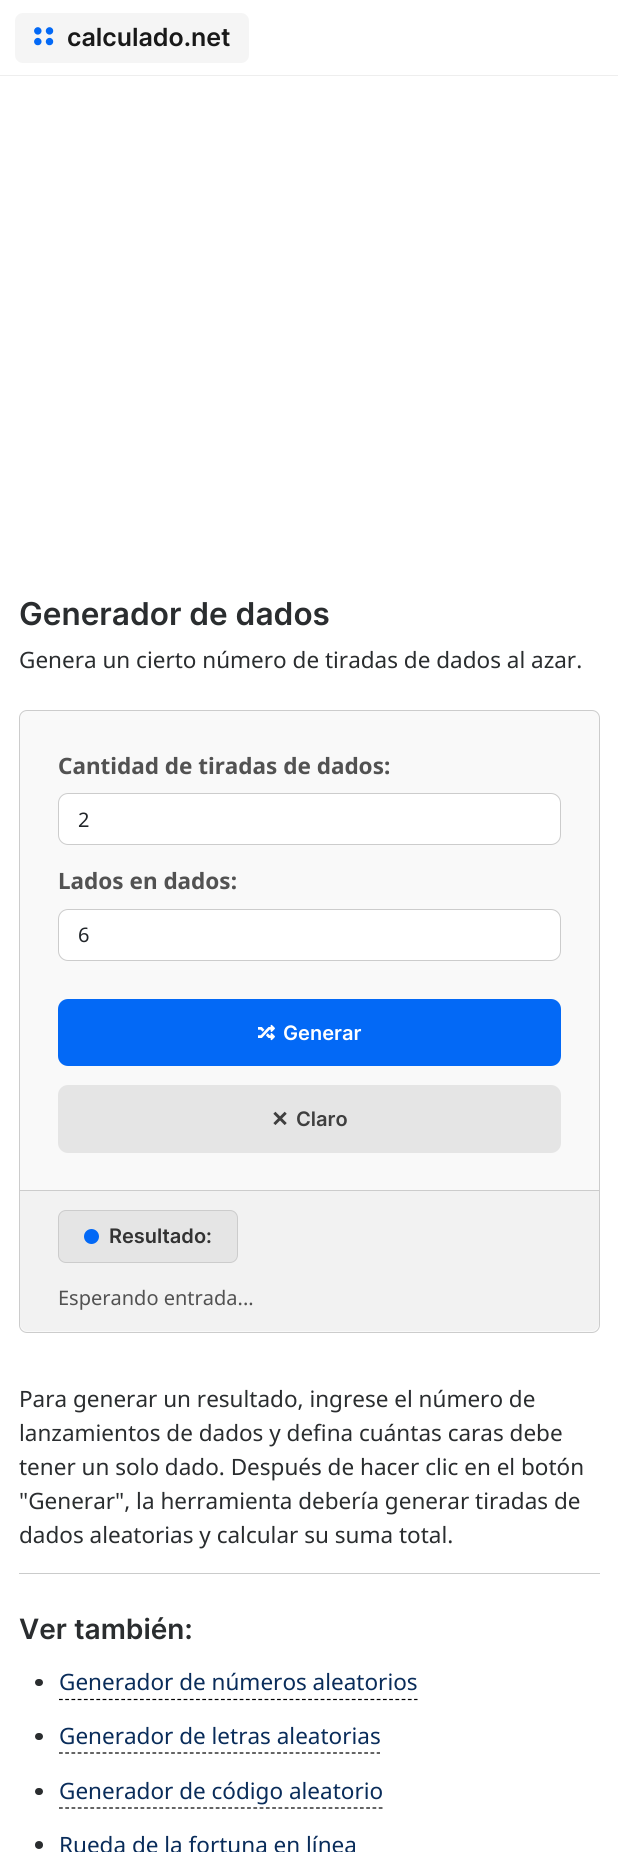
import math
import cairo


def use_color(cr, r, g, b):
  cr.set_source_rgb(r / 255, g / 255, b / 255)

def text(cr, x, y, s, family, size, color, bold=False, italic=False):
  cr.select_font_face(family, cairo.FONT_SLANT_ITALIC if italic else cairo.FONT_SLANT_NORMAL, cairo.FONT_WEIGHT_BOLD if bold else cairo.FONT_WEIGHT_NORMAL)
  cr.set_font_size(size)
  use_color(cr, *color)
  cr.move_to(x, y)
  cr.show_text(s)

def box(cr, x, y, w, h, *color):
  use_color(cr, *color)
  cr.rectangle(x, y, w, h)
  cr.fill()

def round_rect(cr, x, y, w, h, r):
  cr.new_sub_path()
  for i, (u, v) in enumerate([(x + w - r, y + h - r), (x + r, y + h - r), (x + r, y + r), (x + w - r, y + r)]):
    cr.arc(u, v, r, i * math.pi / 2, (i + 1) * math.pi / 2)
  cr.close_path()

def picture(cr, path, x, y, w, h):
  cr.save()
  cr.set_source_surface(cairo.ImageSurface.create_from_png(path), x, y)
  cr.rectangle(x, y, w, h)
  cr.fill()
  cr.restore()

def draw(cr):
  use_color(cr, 255, 255, 255)
  cr.paint()
  box(cr, 0, 75, 618, 1, 238, 238, 238)
  use_color(cr, 245, 245, 245)
  round_rect(cr, 15, 13, 234, 50, 8)
  cr.fill()
  picture(cr, "img_01.png", 34, 27, 20, 19)
  use_color(cr, 249, 249, 249)
  round_rect(cr, 19.5, 710.5, 580, 622, 7.5)
  cr.fill_preserve()
  use_color(cr, 204, 204, 204)
  cr.set_line_width(1)
  cr.stroke()
  use_color(cr, 255, 255, 255)
  round_rect(cr, 58.5, 793.5, 502, 51, 9.5)
  cr.fill_preserve()
  use_color(cr, 204, 204, 204)
  cr.stroke()
  use_color(cr, 255, 255, 255)
  round_rect(cr, 58.5, 909.5, 502, 51, 9.5)
  cr.fill_preserve()
  use_color(cr, 204, 204, 204)
  cr.stroke()
  use_color(cr, 3, 105, 246)
  round_rect(cr, 58, 999, 503, 67, 10)
  cr.fill()
  picture(cr, "img_02.png", 258, 1024, 17, 17)
  use_color(cr, 229, 229, 229)
  round_rect(cr, 58, 1085, 503, 68, 10)
  cr.fill()
  picture(cr, "img_03.png", 273, 1111, 14, 14)
  use_color(cr, 242, 242, 242)
  cr.new_path()
  cr.move_to(20, 1190)
  cr.line_to(599, 1190)
  cr.line_to(599, 1323)
  cr.curve_to(599, 1327.5, 595.5, 1331, 591, 1331)
  cr.line_to(28, 1331)
  cr.curve_to(23.5, 1331, 20, 1327.5, 20, 1323)
  cr.close_path()
  cr.fill()
  box(cr, 20, 1190, 579, 1, 204, 204, 204)
  use_color(cr, 229, 229, 229)
  round_rect(cr, 58.5, 1210.5, 179, 52, 7.5)
  cr.fill_preserve()
  use_color(cr, 204, 204, 204)
  cr.stroke()
  use_color(cr, 3, 105, 246)
  cr.arc(91.5, 1236.5, 7.5, 0, 2 * math.pi)
  cr.fill()
  box(cr, 19, 1573, 581, 1, 202, 203, 203)
  use_color(cr, 42, 45, 47)
  round_rect(cr, 35, 1679, 8, 7, 3.5)
  cr.fill()
  cr.new_path()
  cr.move_to(59, 1699.5)
  cr.line_to(417.5, 1699.5)
  use_color(cr, 0, 0, 0)
  cr.set_line_width(1.2)
  cr.set_dash([3.75, 2.48])
  cr.stroke()
  use_color(cr, 42, 45, 47)
  round_rect(cr, 35, 1733, 8, 7, 3.5)
  cr.fill()
  cr.new_path()
  cr.move_to(59, 1753)
  cr.line_to(380, 1753)
  use_color(cr, 0, 0, 0)
  cr.stroke()
  use_color(cr, 42, 45, 47)
  round_rect(cr, 35, 1788, 8, 7, 3.5)
  cr.fill()
  cr.new_path()
  cr.move_to(59, 1808)
  cr.line_to(382.5, 1808)
  use_color(cr, 0, 0, 0)
  cr.set_dash([3.75, 2.52])
  cr.stroke()
  use_color(cr, 42, 45, 47)
  cr.arc(39, 1845, 4, 0, 2 * math.pi)
  cr.fill()
  text(cr, 67, 46, "calculado.net", "Inter SemiBold", 25, (25, 25, 25))
  text(cr, 19, 625, "Generador de dados", "Inter SemiBold", 31.5, (42, 45, 47))
  text(cr, 19, 668, "Genera un cierto número de tiradas de dados al azar.", "Noto Sans", 22.5, (42, 45, 47))
  text(cr, 58, 774, "Cantidad de tiradas de dados:", "Noto Sans", 22.5, (82, 82, 82), bold=True)
  text(cr, 78, 827, "2", "Noto Sans", 20, (33, 37, 41))
  text(cr, 58, 889, "Lados en dados:", "Noto Sans", 22.5, (82, 82, 82), bold=True)
  text(cr, 78, 942, "6", "Noto Sans", 20, (33, 37, 41))
  text(cr, 283, 1040, "Generar", "Inter SemiBold", 20, (255, 255, 255))
  text(cr, 296, 1126, "Claro", "Inter SemiBold", 20, (63, 63, 63))
  text(cr, 109, 1243, "Resultado:", "Inter SemiBold", 20, (51, 51, 51))
  text(cr, 58, 1305, "Esperando entrada...", "Noto Sans", 20, (82, 82, 82))
  text(cr, 19, 1407, "Para generar un resultado, ingrese el número de", "Noto Sans", 22.5, (42, 45, 47))
  text(cr, 19, 1441, "lanzamientos de dados y defina cuántas caras debe", "Noto Sans", 22.5, (42, 45, 47))
  text(cr, 19, 1475, "tener un solo dado. Después de hacer clic en el botón", "Noto Sans", 22.5, (42, 45, 47))
  text(cr, 19, 1509, "\"Generar\", la herramienta debería generar tiradas de", "Noto Sans", 22.5, (42, 45, 47))
  text(cr, 19, 1543, "dados aleatorias y calcular su suma total.", "Noto Sans", 22.5, (42, 45, 47))
  text(cr, 19, 1639, "Ver también:", "Inter SemiBold", 28, (42, 45, 47))
  text(cr, 59, 1690, "Generador de números aleatorios", "Noto Sans", 22.5, (9, 44, 90))
  text(cr, 59, 1744, "Generador de letras aleatorias", "Noto Sans", 22.5, (9, 44, 90))
  text(cr, 59, 1799, "Generador de código aleatorio", "Noto Sans", 22.5, (9, 44, 90))
  text(cr, 59, 1853, "Rueda de la fortuna en línea", "Noto Sans", 22.5, (9, 44, 90))


surface = cairo.ImageSurface(cairo.FORMAT_RGB24, 618, 1852)
cr = cairo.Context(surface)
options = cairo.FontOptions()
options.set_hint_metrics(cairo.HINT_METRICS_OFF)
options.set_hint_style(cairo.HINT_STYLE_NONE)
cr.set_font_options(options)
cr.set_miter_limit(4)
draw(cr)
surface.write_to_png("out.png")
